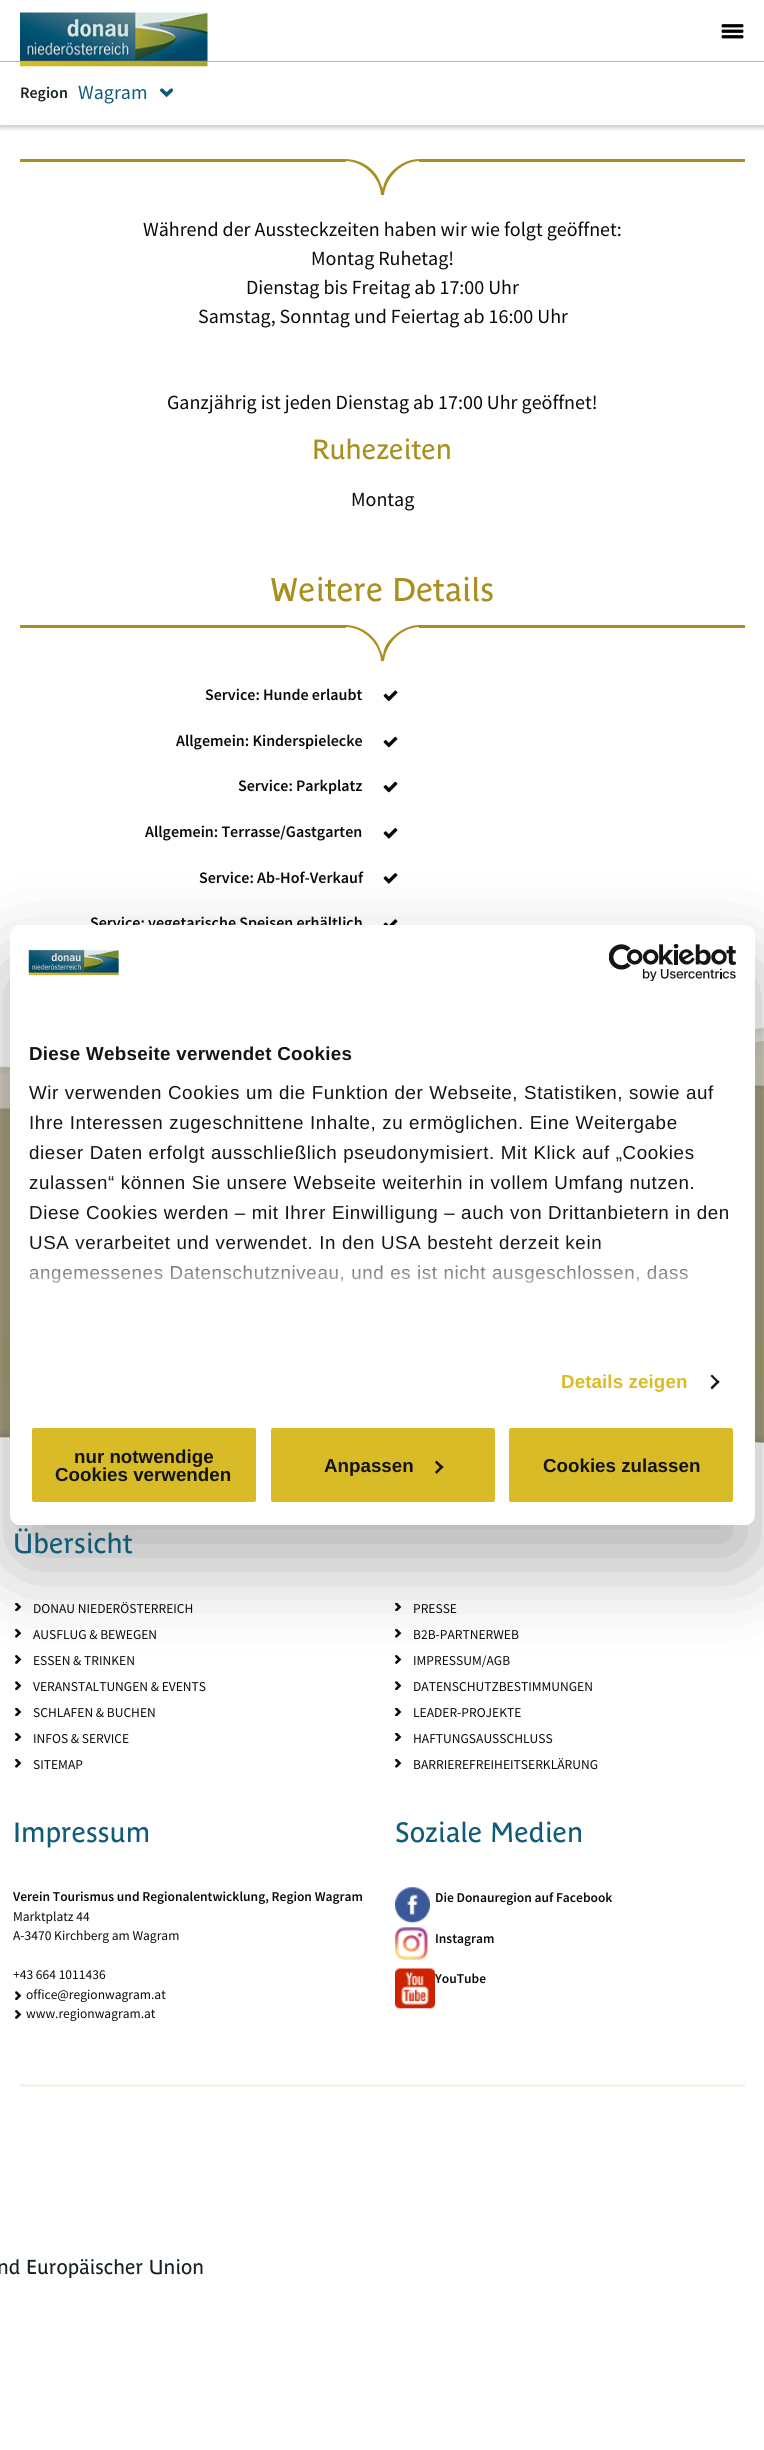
import math
import cairo


def use_color(cr, r, g, b):
  cr.set_source_rgb(r / 255, g / 255, b / 255)

def text(cr, x, y, s, family, size, color, bold=False, italic=False):
  cr.select_font_face(family, cairo.FONT_SLANT_ITALIC if italic else cairo.FONT_SLANT_NORMAL, cairo.FONT_WEIGHT_BOLD if bold else cairo.FONT_WEIGHT_NORMAL)
  cr.set_font_size(size)
  use_color(cr, *color)
  cr.move_to(x, y)
  cr.show_text(s)

def spaced_text(cr, x, y, s, letter, word):
  cr.move_to(x, y)
  for ch in s:
    cr.show_text(ch)
    cr.rel_move_to(letter + word * (ch == ' '), 0)

def box(cr, x, y, w, h, *color):
  use_color(cr, *color)
  cr.rectangle(x, y, w, h)
  cr.fill()

def round_rect(cr, x, y, w, h, r):
  cr.new_sub_path()
  for i, (u, v) in enumerate([(x + w - r, y + h - r), (x + r, y + h - r), (x + r, y + r), (x + w - r, y + r)]):
    cr.arc(u, v, r, i * math.pi / 2, (i + 1) * math.pi / 2)
  cr.close_path()

def shadow(cr, x, y, w, h, r, blur, alpha):
  cr.push_group_with_content(cairo.CONTENT_ALPHA)
  cr.set_operator(cairo.OPERATOR_SOURCE)
  for i in range(15, -16, -2):
    e = blur * i / 6
    if min(w, h) + 2 * e > 0:
      cr.set_source_rgba(0, 0, 0, alpha * math.erfc((i - 1) / 8.5) / 2)
      round_rect(cr, x - e, y - e, w + 2 * e, h + 2 * e, max(0, min(r + e + blur * .6, min(w, h) / 2 + e)))
      cr.fill()
  cr.mask(cr.pop_group())

def picture(cr, path, x, y, w, h):
  cr.save()
  cr.set_source_surface(cairo.ImageSurface.create_from_png(path), x, y)
  cr.rectangle(x, y, w, h)
  cr.fill()
  cr.restore()

def draw(cr):
  use_color(cr, 255, 255, 255)
  cr.paint()
  use_color(cr, 0, 0, 0)
  shadow(cr, 0, 3, 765, 125, 0, 2, 0.2)
  box(cr, 0, 0, 764, 125, 255, 255, 255)
  box(cr, 0, 61, 764, 1, 217, 187, 39)
  picture(cr, "img_01.png", 20, 12, 188, 55)
  picture(cr, "img_02.png", 721, 24, 23, 15)
  picture(cr, "img_03.png", 160, 88, 13, 10)
  use_color(cr, 169, 143, 32)
  cr.new_path()
  cr.move_to(389, 175)
  cr.curve_to(386, 178, 383, 185, 383, 189)
  cr.line_to(380, 182)
  cr.curve_to(375, 168, 360, 159, 345, 159)
  cr.line_to(345, 161)
  cr.curve_to(363, 161, 380, 177, 381, 195)
  cr.line_to(384, 195)
  cr.curve_to(386, 177, 402, 161, 420, 161)
  cr.line_to(420, 159)
  cr.curve_to(405, 159, 394, 168, 389, 175)
  cr.close_path()
  cr.fill()
  box(cr, 20, 159, 326, 3, 169, 143, 32)
  box(cr, 419, 159, 326, 3, 169, 143, 32)
  cr.new_path()
  cr.move_to(389, 641)
  cr.curve_to(386, 644, 383, 651, 383, 656)
  cr.line_to(380, 649)
  cr.curve_to(375, 635, 360, 625, 345, 625)
  cr.line_to(345, 627)
  cr.curve_to(363, 627, 380, 643, 381, 661)
  cr.line_to(384, 661)
  cr.curve_to(386, 643, 402, 627, 420, 627)
  cr.line_to(420, 625)
  cr.curve_to(405, 625, 394, 635, 389, 641)
  cr.close_path()
  cr.fill()
  box(cr, 20, 625, 326, 3, 169, 143, 32)
  box(cr, 419, 625, 326, 3, 169, 143, 32)
  picture(cr, "img_04.png", 383, 690, 15, 11)
  picture(cr, "img_05.png", 383, 736, 15, 12)
  picture(cr, "img_05.png", 383, 781, 15, 12)
  picture(cr, "img_06.png", 383, 828, 15, 11)
  picture(cr, "img_06.png", 383, 873, 15, 11)
  picture(cr, "img_07.png", 383, 919, 15, 6)
  box(cr, 0, 1027, 764, 416, 165, 158, 128)
  picture(cr, "img_10.png", 755, 1027, 9, 63)
  picture(cr, "img_09.png", 0, 1027, 764, 86)
  picture(cr, "img_08.png", 0, 1023, 764, 51)
  use_color(cr, 169, 143, 32)
  shadow(cr, 20, 1333, 725, 55, 0, 11, 1)
  picture(cr, "img_11.png", 0, 1430, 764, 18)
  picture(cr, "img_12.png", 15, 1603, 7, 8)
  picture(cr, "img_12.png", 395, 1603, 7, 8)
  picture(cr, "img_13.png", 15, 1629, 7, 9)
  picture(cr, "img_13.png", 395, 1629, 7, 9)
  picture(cr, "img_14.png", 15, 1655, 7, 9)
  picture(cr, "img_14.png", 395, 1655, 7, 9)
  picture(cr, "img_15.png", 15, 1681, 7, 9)
  picture(cr, "img_15.png", 395, 1681, 7, 9)
  picture(cr, "img_12.png", 15, 1708, 7, 8)
  picture(cr, "img_12.png", 395, 1708, 7, 8)
  picture(cr, "img_12.png", 15, 1733, 7, 8)
  picture(cr, "img_12.png", 395, 1733, 7, 8)
  picture(cr, "img_13.png", 15, 1759, 7, 9)
  picture(cr, "img_13.png", 395, 1759, 7, 9)
  picture(cr, "img_15.png", 15, 1991, 7, 9)
  picture(cr, "img_14.png", 15, 2010, 7, 9)
  picture(cr, "img_16.png", 395, 1887, 35, 36)
  picture(cr, "img_17.png", 395, 1927, 33, 33)
  picture(cr, "img_18.png", 395, 1968, 40, 41)
  box(cr, 20, 2084, 725, 3, 242, 243, 235)
  use_color(cr, 0, 0, 0)
  shadow(cr, 10, 965, 745, 600, 10, 42.5, 0.3)
  text(cr, 20, 98, "Region", "Source Sans Pro SemiBold", 16, (23, 34, 38))
  text(cr, 78, 99, "Wagram", "Source Sans Pro", 20, (16, 92, 120))
  text(cr, 143, 236, "Während der Aussteckzeiten haben wir wie folgt geöffnet:", "Source Sans Pro", 20, (10, 10, 10))
  text(cr, 311, 265, "Montag Ruhetag!", "Source Sans Pro", 20, (10, 10, 10))
  text(cr, 246, 294, "Dienstag bis Freitag ab 17:00 Uhr", "Source Sans Pro", 20, (10, 10, 10))
  text(cr, 198, 323, "Samstag, Sonntag und Feiertag ab 16:00 Uhr", "Source Sans Pro", 20, (10, 10, 10))
  text(cr, 167, 409, "Ganzjährig ist jeden Dienstag ab 17:00 Uhr geöffnet!", "Source Sans Pro", 20, (10, 10, 10))
  text(cr, 312, 459, "Ruhezeiten", "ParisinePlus", 27.5, (169, 143, 32))
  text(cr, 351, 506, "Montag", "Source Sans Pro", 20, (10, 10, 10))
  text(cr, 270, 601, "Weitere Details", "ParisinePlus", 32.5, (169, 143, 32))
  text(cr, 205, 700, "Service: Hunde erlaubt", "Source Sans Pro SemiBold", 16, (10, 10, 10))
  text(cr, 176, 746, "Allgemein: Kinderspielecke", "Source Sans Pro SemiBold", 16, (10, 10, 10))
  text(cr, 238, 791, "Service: Parkplatz", "Source Sans Pro SemiBold", 16, (10, 10, 10))
  text(cr, 145, 837, "Allgemein: Terrasse/Gastgarten", "Source Sans Pro SemiBold", 16, (10, 10, 10))
  text(cr, 199, 883, "Service: Ab-Hof-Verkauf", "Source Sans Pro SemiBold", 16, (10, 10, 10))
  text(cr, 90, 928, "Service: vegetarische Speisen erhältlich", "Source Sans Pro SemiBold", 16, (10, 10, 10))
  text(cr, 13, 1553, "Übersicht", "ParisinePlus", 27.5, (16, 92, 120))
  text(cr, 33, 1613, "DONAU NIEDERÖSTERREICH", "Source Sans Pro", 13.5, (10, 10, 10))
  text(cr, 413, 1613, "PRESSE", "Source Sans Pro", 13.5, (10, 10, 10))
  text(cr, 33, 1639, "AUSFLUG & BEWEGEN", "Source Sans Pro", 13.5, (10, 10, 10))
  text(cr, 413, 1639, "B2B-PARTNERWEB", "Source Sans Pro", 13.5, (10, 10, 10))
  text(cr, 33, 1665, "ESSEN & TRINKEN", "Source Sans Pro", 13.5, (10, 10, 10))
  text(cr, 413, 1665, "IMPRESSUM/AGB", "Source Sans Pro", 13.5, (10, 10, 10))
  text(cr, 33, 1691, "VERANSTALTUNGEN & EVENTS", "Source Sans Pro", 13.5, (10, 10, 10))
  text(cr, 413, 1691, "DATENSCHUTZBESTIMMUNGEN", "Source Sans Pro", 13.5, (10, 10, 10))
  text(cr, 33, 1717, "SCHLAFEN & BUCHEN", "Source Sans Pro", 13.5, (10, 10, 10))
  text(cr, 413, 1717, "LEADER-PROJEKTE", "Source Sans Pro", 13.5, (10, 10, 10))
  text(cr, 33, 1743, "INFOS & SERVICE", "Source Sans Pro", 13.5, (10, 10, 10))
  text(cr, 413, 1743, "HAFTUNGSAUSSCHLUSS", "Source Sans Pro", 13.5, (10, 10, 10))
  text(cr, 33, 1769, "SITEMAP", "Source Sans Pro", 13.5, (10, 10, 10))
  text(cr, 413, 1769, "BARRIEREFREIHEITSERKLÄRUNG", "Source Sans Pro", 13.5, (10, 10, 10))
  text(cr, 13, 1842, "Impressum", "ParisinePlus", 27.5, (16, 92, 120))
  text(cr, 13, 1901, "Verein Tourismus und Regionalentwicklung, Region Wagram", "Source Sans Pro SemiBold", 13.5, (10, 10, 10))
  text(cr, 13, 1921, "Marktplatz 44", "Source Sans Pro", 13.5, (10, 10, 10))
  text(cr, 13, 1940, "A-3470 Kirchberg am Wagram", "Source Sans Pro", 13.5, (10, 10, 10))
  text(cr, 13, 1979, "+43 664 1011436", "Source Sans Pro", 13.5, (10, 10, 10))
  text(cr, 26, 1999, "office@regionwagram.at", "Source Sans Pro", 13.5, (10, 10, 10))
  text(cr, 26, 2018, "www.regionwagram.at", "Source Sans Pro", 13.5, (10, 10, 10))
  text(cr, 395, 1842, "Soziale Medien", "ParisinePlus", 27.5, (16, 92, 120))
  text(cr, 435, 1902, "Die Donauregion auf Facebook", "Source Sans Pro SemiBold", 13.5, (10, 10, 10))
  text(cr, 435, 1943, "Instagram", "Source Sans Pro SemiBold", 13.5, (10, 10, 10))
  text(cr, 435, 1983, "YouTube", "Source Sans Pro SemiBold", 13.5, (10, 10, 10))
  text(cr, -3, 2274, "nd Europäischer Union", "ParisinePlus", 20, (23, 34, 38))
  use_color(cr, 255, 255, 255)
  round_rect(cr, 10, 925, 745, 600, 10)
  cr.fill()
  picture(cr, "img_19.png", 28, 949, 91, 27)
  picture(cr, "img_20.png", 609, 944, 127, 37)
  cr.select_font_face("Liberation Sans", cairo.FONT_SLANT_NORMAL, cairo.FONT_WEIGHT_BOLD)
  cr.set_font_size(18.75)
  use_color(cr, 20, 20, 20)
  spaced_text(cr, 29, 1060, "Diese Webseite verwendet Cookies", 0.3, 0)
  cr.select_font_face("Liberation Sans")
  spaced_text(cr, 29, 1099, "Wir verwenden Cookies um die Funktion der Webseite, Statistiken, sowie auf", 0.62, 0)
  spaced_text(cr, 29, 1129, "Ihre Interessen zugeschnittene Inhalte, zu ermöglichen. Eine Weitergabe", 0.62, 0)
  spaced_text(cr, 29, 1159, "dieser Daten erfolgt ausschließlich pseudonymisiert. Mit Klick auf „Cookies", 0.62, 0)
  spaced_text(cr, 29, 1189, "zulassen“ können Sie unsere Webseite weiterhin in vollem Umfang nutzen.", 0.62, 0)
  spaced_text(cr, 29, 1219, "Diese Cookies werden – mit Ihrer Einwilligung – auch von Drittanbietern in den", 0.62, 0)
  spaced_text(cr, 29, 1249, "USA verarbeitet und verwendet. In den USA besteht derzeit kein", 0.62, 0)
  spaced_text(cr, 29, 1279, "angemessenes Datenschutzniveau, und es ist nicht ausgeschlossen, dass", 0.62, 0)
  gradient = cairo.LinearGradient(374, 1338, 374, 1244)
  gradient.add_color_stop_rgba(0, 1, 1, 1, 1)
  gradient.add_color_stop_rgba(0.5, 1, 1, 1, 0.8)
  gradient.add_color_stop_rgba(1, 1, 1, 1, 0)
  cr.set_source(gradient)
  cr.rectangle(29, 1245, 659, 38)
  cr.fill()
  cr.select_font_face("Liberation Sans", cairo.FONT_SLANT_NORMAL, cairo.FONT_WEIGHT_BOLD)
  use_color(cr, 217, 187, 39)
  spaced_text(cr, 561, 1388, "Details zeigen", 0.1, 0)
  use_color(cr, 20, 20, 20)
  cr.new_path()
  cr.move_to(712, 1374.5)
  cr.line_to(719.5, 1382)
  cr.line_to(718, 1383.5)
  cr.line_to(710.5, 1376)
  cr.close_path()
  cr.fill()
  cr.new_path()
  cr.move_to(718, 1380)
  cr.line_to(719.5, 1382)
  cr.line_to(712, 1389.5)
  cr.line_to(710.5, 1387.5)
  cr.close_path()
  cr.fill()
  cr.save()
  round_rect(cr, 10, 925, 745, 600, 10)
  cr.clip()
  box(cr, 10, 1524, 745, 1, 255, 255, 255)
  cr.restore()
  use_color(cr, 217, 187, 39)
  round_rect(cr, 30.5, 1426.5, 227, 77, 3.5)
  cr.fill_preserve()
  use_color(cr, 255, 255, 255)
  cr.set_line_width(3)
  cr.stroke()
  text(cr, 74, 1463, "nur notwendige", "Liberation Sans", 18.75, (20, 20, 20), bold=True)
  text(cr, 55, 1481, "Cookies verwenden", "Liberation Sans", 18.75, (20, 20, 20), bold=True)
  use_color(cr, 217, 187, 39)
  round_rect(cr, 269.5, 1426.5, 227, 77, 3.5)
  cr.fill_preserve()
  use_color(cr, 255, 255, 255)
  cr.stroke()
  text(cr, 324, 1472, "Anpassen", "Liberation Sans", 18.75, (20, 20, 20), bold=True)
  cr.new_path()
  cr.move_to(436.5, 1460.5)
  cr.line_to(443.5, 1467)
  cr.line_to(441.5, 1469)
  cr.line_to(435, 1462.5)
  cr.close_path()
  cr.fill()
  cr.new_path()
  cr.move_to(441.5, 1465.5)
  cr.line_to(443.5, 1467)
  cr.line_to(436.5, 1474)
  cr.line_to(435, 1472)
  cr.close_path()
  cr.fill()
  use_color(cr, 217, 187, 39)
  round_rect(cr, 507.5, 1426.5, 227, 77, 3.5)
  cr.fill_preserve()
  use_color(cr, 255, 255, 255)
  cr.stroke()
  text(cr, 543, 1472, "Cookies zulassen", "Liberation Sans", 18.75, (20, 20, 20), bold=True)


surface = cairo.ImageSurface(cairo.FORMAT_RGB24, 764, 2450)
cr = cairo.Context(surface)
options = cairo.FontOptions()
options.set_hint_metrics(cairo.HINT_METRICS_OFF)
options.set_hint_style(cairo.HINT_STYLE_NONE)
cr.set_font_options(options)
cr.set_miter_limit(4)
draw(cr)
surface.write_to_png("out.png")
